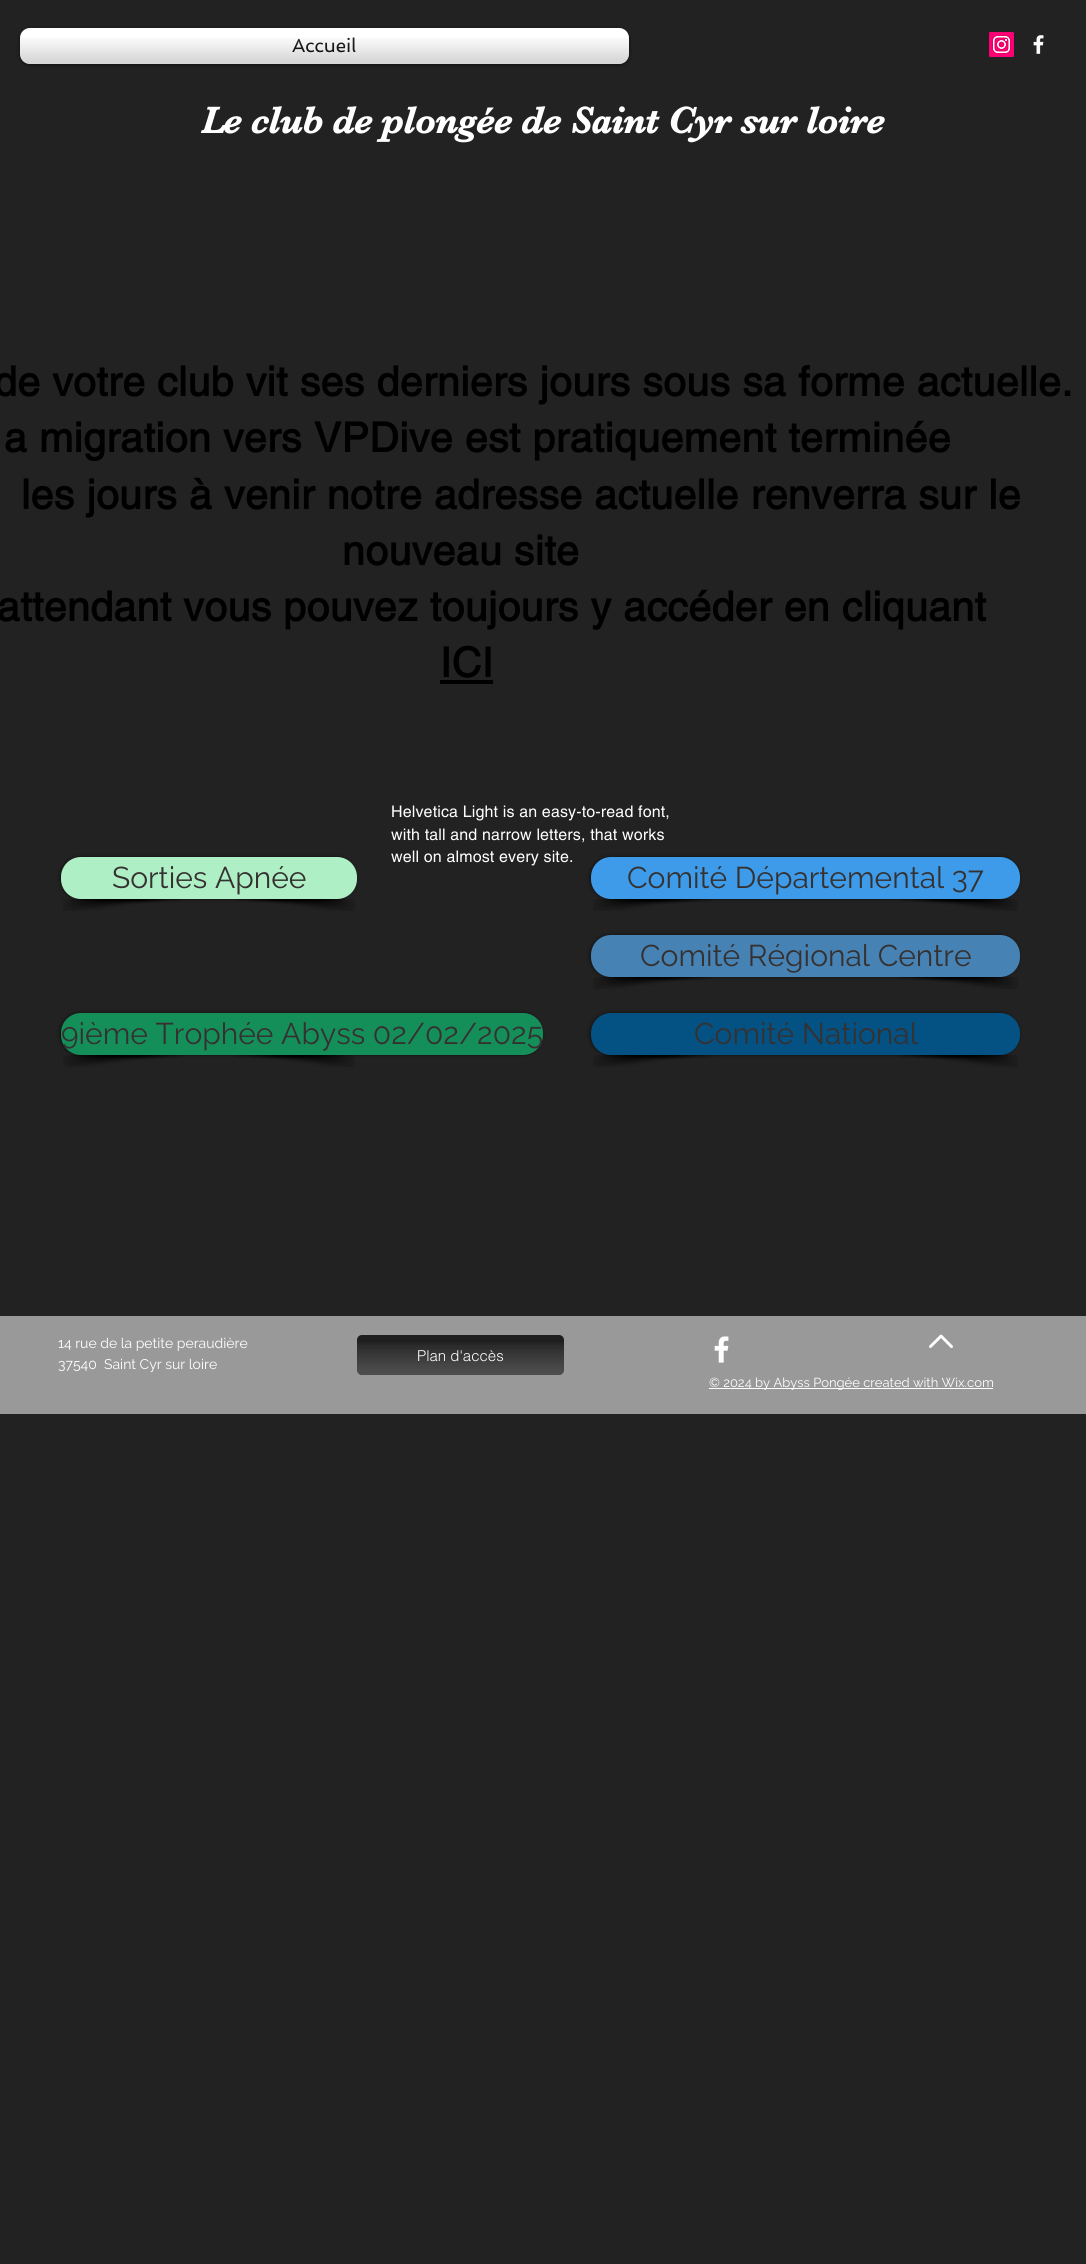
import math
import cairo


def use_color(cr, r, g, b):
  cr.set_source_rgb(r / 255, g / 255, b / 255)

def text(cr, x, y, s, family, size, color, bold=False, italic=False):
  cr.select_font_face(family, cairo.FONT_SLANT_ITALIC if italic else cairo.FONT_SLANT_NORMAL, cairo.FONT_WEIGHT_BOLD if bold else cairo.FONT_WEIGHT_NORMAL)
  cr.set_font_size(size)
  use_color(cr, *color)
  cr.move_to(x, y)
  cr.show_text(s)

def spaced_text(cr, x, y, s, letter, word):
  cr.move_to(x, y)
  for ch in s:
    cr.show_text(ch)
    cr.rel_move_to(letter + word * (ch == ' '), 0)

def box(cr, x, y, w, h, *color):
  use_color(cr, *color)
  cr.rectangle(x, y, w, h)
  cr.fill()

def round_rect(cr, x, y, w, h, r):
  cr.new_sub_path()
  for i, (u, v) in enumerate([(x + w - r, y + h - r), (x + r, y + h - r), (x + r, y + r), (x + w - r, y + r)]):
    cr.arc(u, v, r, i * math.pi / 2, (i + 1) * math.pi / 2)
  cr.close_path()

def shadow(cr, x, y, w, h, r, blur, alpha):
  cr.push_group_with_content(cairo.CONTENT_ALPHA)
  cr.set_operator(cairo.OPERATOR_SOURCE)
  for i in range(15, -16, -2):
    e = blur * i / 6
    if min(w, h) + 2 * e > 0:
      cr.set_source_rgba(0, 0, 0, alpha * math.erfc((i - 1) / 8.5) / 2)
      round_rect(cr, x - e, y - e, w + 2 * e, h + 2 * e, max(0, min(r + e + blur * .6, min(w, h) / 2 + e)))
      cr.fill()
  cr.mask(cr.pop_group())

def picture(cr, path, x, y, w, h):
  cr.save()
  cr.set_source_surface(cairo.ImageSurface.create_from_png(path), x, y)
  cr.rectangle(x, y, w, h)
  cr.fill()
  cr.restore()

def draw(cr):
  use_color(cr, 34, 34, 34)
  cr.paint()
  use_color(cr, 0, 0, 0)
  shadow(cr, 20, 29, 609, 36, 10, 2, 0.6)
  picture(cr, "img_01.png", 20, 28, 609, 8)
  picture(cr, "img_02.png", 20, 54, 609, 10)
  use_color(cr, 255, 255, 255)
  round_rect(cr, 20, 28, 609, 36, 10)
  cr.fill()
  picture(cr, "img_05.png", 989, 32, 25, 25)
  picture(cr, "img_06.png", 1033, 35, 11, 19)
  box(cr, 440, 680, 53, 4, 0, 0, 0)
  picture(cr, "img_07.png", 63, 899, 120, 12)
  picture(cr, "img_08.png", 235, 899, 120, 12)
  use_color(cr, 0, 0, 0)
  shadow(cr, 60, 857, 296, 42, 20, 2, 0.6)
  use_color(cr, 174, 239, 197)
  round_rect(cr, 61, 857, 296, 42, 20)
  cr.fill()
  picture(cr, "img_07.png", 593, 899, 120, 12)
  picture(cr, "img_08.png", 898, 899, 120, 12)
  use_color(cr, 0, 0, 0)
  shadow(cr, 590, 857, 429, 42, 20, 2, 0.6)
  use_color(cr, 61, 155, 233)
  round_rect(cr, 591, 857, 429, 42, 20)
  cr.fill()
  picture(cr, "img_07.png", 593, 977, 120, 12)
  picture(cr, "img_08.png", 898, 977, 120, 12)
  use_color(cr, 0, 0, 0)
  shadow(cr, 590, 935, 429, 42, 20, 2, 0.6)
  use_color(cr, 70, 130, 180)
  round_rect(cr, 591, 935, 429, 42, 20)
  cr.fill()
  picture(cr, "img_07.png", 63, 1055, 120, 12)
  picture(cr, "img_08.png", 235, 1055, 120, 12)
  use_color(cr, 0, 0, 0)
  shadow(cr, 60, 1013, 482, 42, 20, 2, 0.6)
  use_color(cr, 21, 143, 90)
  round_rect(cr, 61, 1013, 482, 42, 20)
  cr.fill()
  picture(cr, "img_07.png", 593, 1055, 120, 12)
  picture(cr, "img_08.png", 898, 1055, 120, 12)
  use_color(cr, 0, 0, 0)
  shadow(cr, 590, 1013, 429, 42, 20, 2, 0.6)
  use_color(cr, 4, 81, 132)
  round_rect(cr, 591, 1013, 429, 42, 20)
  cr.fill()
  box(cr, 0, 1316, 1086, 98, 153, 153, 153)
  use_color(cr, 35, 35, 35)
  round_rect(cr, 357, 1335, 207, 40, 5)
  cr.fill()
  picture(cr, "img_09.png", 357, 1335, 207, 10)
  picture(cr, "img_10.png", 357, 1342, 207, 33)
  picture(cr, "img_11.png", 714, 1336, 15, 27)
  picture(cr, "img_12.png", 929, 1334, 24, 14)
  box(cr, 709, 1388, 284, 1, 255, 255, 255)
  text(cr, 292, 52, "Accueil", "Spinnaker", 19, (0, 0, 0))
  picture(cr, "img_03.png", 293, 37, 63, 15)
  picture(cr, "img_04.png", 20, 38, 609, 26)
  text(cr, 201, 133, "Le club de plongée de Saint Cyr sur loire", "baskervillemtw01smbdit", 38, (255, 255, 255), bold=True)
  cr.select_font_face("helvetica", cairo.FONT_SLANT_NORMAL, cairo.FONT_WEIGHT_BOLD)
  cr.set_font_size(41)
  use_color(cr, 0, 0, 0)
  spaced_text(cr, -6, 396, "de votre club vit ses derniers jours sous sa forme actuelle.", 0.4, 0)
  spaced_text(cr, 4, 452, "a migration vers VPDive est pratiquement terminée", 0.4, 0)
  spaced_text(cr, 21, 509, "les jours à venir notre adresse actuelle renverra sur le", 0.4, 0)
  spaced_text(cr, 342, 565, "nouveau site", 0.4, 0)
  spaced_text(cr, -3, 621, "attendant vous pouvez toujours y accéder en cliquant", 0.4, 0)
  spaced_text(cr, 440, 677, "ICI", 0.4, 0)
  cr.select_font_face("helvetica")
  cr.set_font_size(16)
  use_color(cr, 255, 255, 255)
  spaced_text(cr, 391, 817, "Helvetica Light is an easy-to-read font,", 0.15, 0)
  spaced_text(cr, 391, 840, "with tall and narrow letters, that works", 0.15, 0)
  spaced_text(cr, 391, 862, "well on almost every site.", 0.15, 0)
  text(cr, 112, 888, "Sorties Apnée", "Raleway", 30, (53, 49, 49))
  text(cr, 627, 888, "Comité Départemental 37", "Raleway", 30, (53, 49, 49))
  text(cr, 640, 966, "Comité Régional Centre", "Raleway", 30, (53, 49, 49))
  text(cr, 61, 1044, "9ième Trophée Abyss 02/02/2025", "Raleway", 30, (53, 49, 49))
  text(cr, 694, 1044, "Comité National", "Raleway", 30, (53, 49, 49))
  text(cr, 58, 1348, "14 rue de la petite peraudière", "Raleway", 14, (255, 255, 255))
  text(cr, 58, 1369, "37540  Saint Cyr sur loire", "Raleway", 14, (255, 255, 255))
  text(cr, 417, 1361, "Plan d'accès", "helvetica Light", 15, (255, 255, 255))
  text(cr, 709, 1387, "© 2024 by Abyss Pongée created with Wix.com", "Raleway", 13, (255, 255, 255))


surface = cairo.ImageSurface(cairo.FORMAT_RGB24, 1086, 2264)
cr = cairo.Context(surface)
options = cairo.FontOptions()
options.set_hint_metrics(cairo.HINT_METRICS_OFF)
options.set_hint_style(cairo.HINT_STYLE_NONE)
cr.set_font_options(options)
cr.set_miter_limit(4)
draw(cr)
surface.write_to_png("out.png")
